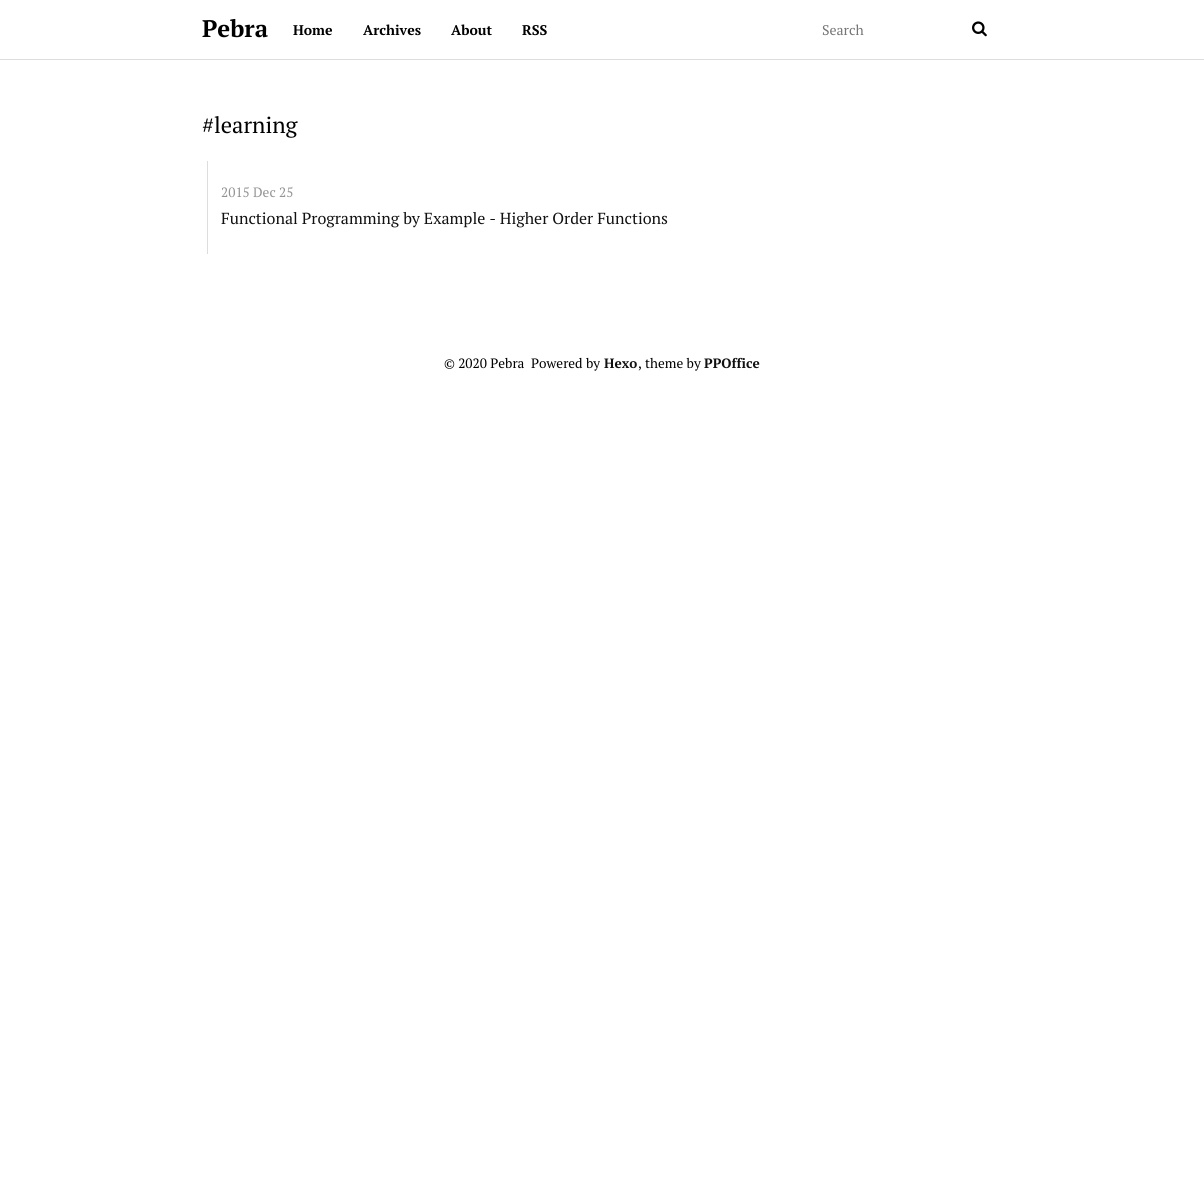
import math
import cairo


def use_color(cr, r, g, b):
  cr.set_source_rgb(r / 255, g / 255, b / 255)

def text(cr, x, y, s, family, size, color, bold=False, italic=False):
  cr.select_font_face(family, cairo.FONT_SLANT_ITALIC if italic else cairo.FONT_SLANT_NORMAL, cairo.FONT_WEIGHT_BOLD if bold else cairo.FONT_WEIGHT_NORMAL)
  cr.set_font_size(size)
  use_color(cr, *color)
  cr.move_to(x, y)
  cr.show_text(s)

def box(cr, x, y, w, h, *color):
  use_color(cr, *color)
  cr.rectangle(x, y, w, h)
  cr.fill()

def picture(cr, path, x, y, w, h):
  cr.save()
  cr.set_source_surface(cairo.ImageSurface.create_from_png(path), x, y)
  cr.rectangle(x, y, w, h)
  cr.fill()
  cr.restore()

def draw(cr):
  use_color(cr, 255, 255, 255)
  cr.paint()
  box(cr, 0, 59, 1204, 1, 221, 221, 221)
  picture(cr, "img_01.png", 972, 21, 15, 16)
  box(cr, 207, 161, 1, 93, 221, 221, 221)
  text(cr, 202, 37, "Pebra", "PT Serif", 24, (0, 0, 0), bold=True)
  text(cr, 293, 35, "Home", "PT Serif", 14, (0, 0, 0), bold=True)
  text(cr, 363, 35, "Archives", "PT Serif", 14, (0, 0, 0), bold=True)
  text(cr, 451, 35, "About", "PT Serif", 14, (0, 0, 0), bold=True)
  text(cr, 522, 35, "RSS", "PT Serif", 14, (0, 0, 0), bold=True)
  text(cr, 822, 35, "Search", "PT Serif", 14, (117, 117, 117))
  text(cr, 202, 133, "#learning", "PT Serif", 22.5, (0, 0, 0))
  text(cr, 221, 197, "2015 Dec 25", "PT Serif", 13.5, (147, 147, 147))
  text(cr, 221, 224, "Functional Programming by Example - Higher Order Functions", "PT Serif", 16, (17, 17, 17))
  text(cr, 444, 368, "© 2020 Pebra", "PT Serif", 13.5, (0, 0, 0))
  text(cr, 531, 368, "Powered by", "PT Serif", 13.5, (0, 0, 0))
  text(cr, 604, 368, "Hexo", "PT Serif", 13.5, (17, 17, 17), bold=True)
  text(cr, 638, 368, ", theme by", "PT Serif", 13.5, (0, 0, 0))
  text(cr, 704, 368, "PPOffice", "PT Serif", 13.5, (17, 17, 17), bold=True)


surface = cairo.ImageSurface(cairo.FORMAT_RGB24, 1204, 1193)
cr = cairo.Context(surface)
options = cairo.FontOptions()
options.set_hint_metrics(cairo.HINT_METRICS_OFF)
options.set_hint_style(cairo.HINT_STYLE_NONE)
cr.set_font_options(options)
cr.set_miter_limit(4)
draw(cr)
surface.write_to_png("out.png")
